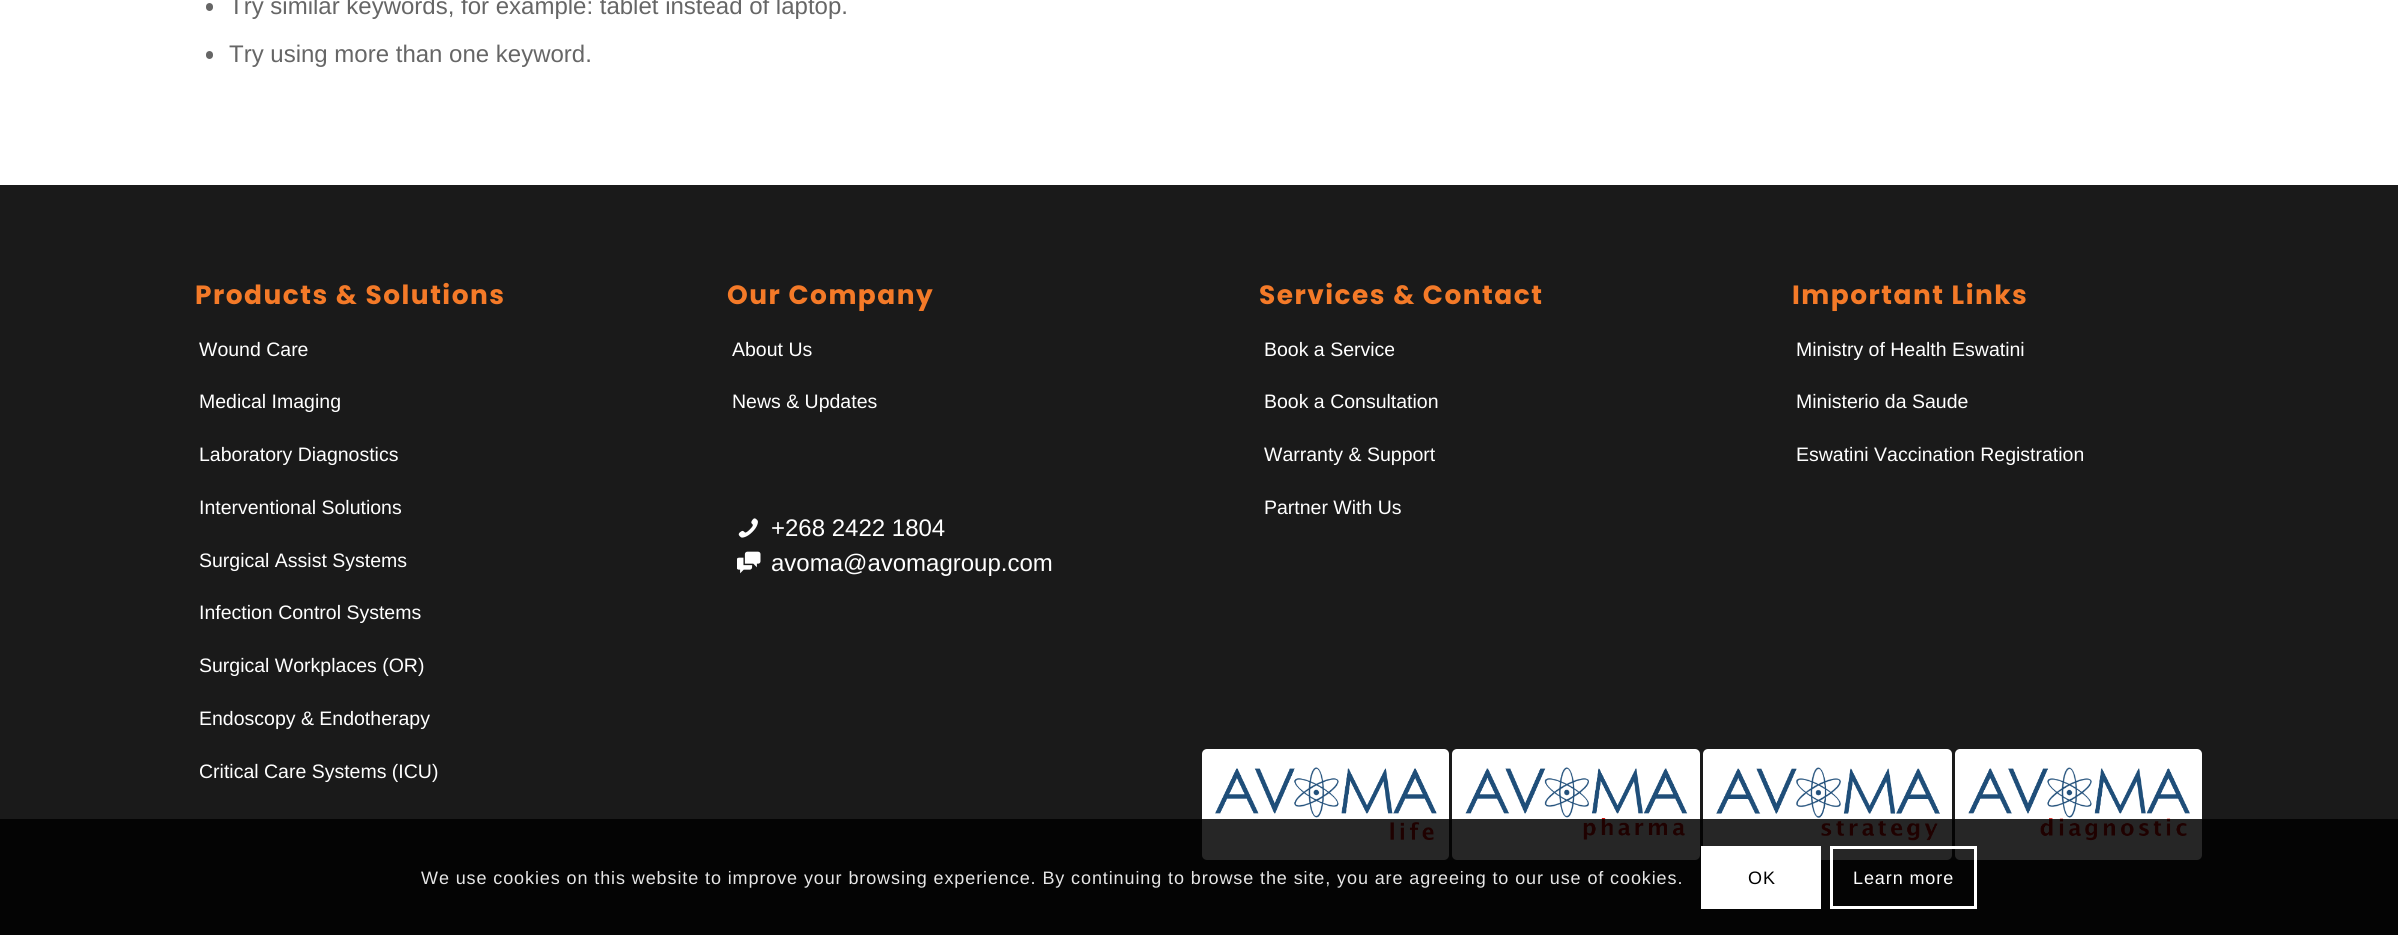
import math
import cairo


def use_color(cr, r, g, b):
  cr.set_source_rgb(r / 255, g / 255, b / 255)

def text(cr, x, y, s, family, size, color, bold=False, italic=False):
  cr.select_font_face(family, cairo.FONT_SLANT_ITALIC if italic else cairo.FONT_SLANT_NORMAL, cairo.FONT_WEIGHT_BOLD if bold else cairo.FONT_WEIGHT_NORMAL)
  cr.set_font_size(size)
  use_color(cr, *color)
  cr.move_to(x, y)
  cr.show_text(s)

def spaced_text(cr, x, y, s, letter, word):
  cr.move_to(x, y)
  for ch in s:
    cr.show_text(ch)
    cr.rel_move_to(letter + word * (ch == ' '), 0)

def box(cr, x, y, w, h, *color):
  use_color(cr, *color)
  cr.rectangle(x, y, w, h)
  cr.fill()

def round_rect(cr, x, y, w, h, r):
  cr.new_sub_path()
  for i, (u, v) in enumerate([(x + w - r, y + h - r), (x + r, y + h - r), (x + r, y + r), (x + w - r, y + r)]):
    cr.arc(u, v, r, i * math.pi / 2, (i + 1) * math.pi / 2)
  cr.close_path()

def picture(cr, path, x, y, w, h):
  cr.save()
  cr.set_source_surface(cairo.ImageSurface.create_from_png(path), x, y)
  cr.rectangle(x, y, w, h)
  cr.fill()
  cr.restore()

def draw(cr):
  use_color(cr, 255, 255, 255)
  cr.paint()
  use_color(cr, 102, 102, 102)
  round_rect(cr, 206, 3, 7, 8, 3.5)
  cr.fill()
  round_rect(cr, 206, 51, 7, 8, 3.5)
  cr.fill()
  box(cr, 0, 185, 2398, 750, 26, 26, 26)
  picture(cr, "img_01.png", 738, 518, 20, 20)
  picture(cr, "img_02.png", 737, 551, 24, 23)
  use_color(cr, 255, 255, 255)
  round_rect(cr, 1202, 749, 247, 111, 5)
  cr.fill()
  picture(cr, "img_03.png", 1215, 767, 222, 73)
  round_rect(cr, 1452, 749, 248, 111, 5)
  cr.fill()
  picture(cr, "img_04.png", 1465, 767, 223, 73)
  round_rect(cr, 1703, 749, 249, 111, 5)
  cr.fill()
  picture(cr, "img_05.png", 1716, 767, 224, 74)
  round_rect(cr, 1955, 749, 247, 111, 5)
  cr.fill()
  picture(cr, "img_06.png", 1968, 767, 222, 74)
  cr.set_source_rgba(0, 0, 0, 0.85)
  cr.rectangle(0, 819, 2398, 116)
  cr.fill()
  box(cr, 1701, 846, 120, 63, 255, 255, 255)
  cr.rectangle(1831.5, 847.5, 144, 60)
  cr.set_line_width(3)
  cr.stroke()
  text(cr, 229, 14, "Try similar keywords, for example: tablet instead of laptop.", "Liberation Sans", 24, (102, 102, 102))
  text(cr, 229, 62, "Try using more than one keyword.", "Liberation Sans", 24, (102, 102, 102))
  cr.select_font_face("Poppins", cairo.FONT_SLANT_NORMAL, cairo.FONT_WEIGHT_BOLD)
  cr.set_font_size(26.4)
  use_color(cr, 244, 122, 40)
  spaced_text(cr, 195, 304, "Products & Solutions", 1.5, 0)
  text(cr, 199, 356, "Wound Care", "Liberation Sans", 19.5, (255, 255, 255))
  text(cr, 199, 408, "Medical Imaging", "Liberation Sans", 19.5, (255, 255, 255))
  text(cr, 199, 461, "Laboratory Diagnostics", "Liberation Sans", 19.5, (255, 255, 255))
  text(cr, 199, 514, "Interventional Solutions", "Liberation Sans", 19.5, (255, 255, 255))
  text(cr, 199, 567, "Surgical Assist Systems", "Liberation Sans", 19.5, (255, 255, 255))
  text(cr, 199, 619, "Infection Control Systems", "Liberation Sans", 19.5, (255, 255, 255))
  text(cr, 199, 672, "Surgical Workplaces (OR)", "Liberation Sans", 19.5, (255, 255, 255))
  text(cr, 199, 725, "Endoscopy & Endotherapy", "Liberation Sans", 19.5, (255, 255, 255))
  text(cr, 199, 778, "Critical Care Systems (ICU)", "Liberation Sans", 19.5, (255, 255, 255))
  cr.select_font_face("Poppins", cairo.FONT_SLANT_NORMAL, cairo.FONT_WEIGHT_BOLD)
  cr.set_font_size(26.4)
  use_color(cr, 244, 122, 40)
  spaced_text(cr, 727, 304, "Our Company", 1.5, 0)
  text(cr, 732, 356, "About Us", "Liberation Sans", 19.5, (255, 255, 255))
  text(cr, 732, 408, "News & Updates", "Liberation Sans", 19.5, (255, 255, 255))
  text(cr, 771, 536, "+268 2422 1804", "Liberation Sans", 24, (255, 255, 255))
  text(cr, 771, 571, "avoma@avomagroup.com", "Liberation Sans", 24, (255, 255, 255))
  cr.select_font_face("Poppins", cairo.FONT_SLANT_NORMAL, cairo.FONT_WEIGHT_BOLD)
  cr.set_font_size(26.4)
  use_color(cr, 244, 122, 40)
  spaced_text(cr, 1259, 304, "Services & Contact", 1.5, 0)
  text(cr, 1264, 356, "Book a Service", "Liberation Sans", 19.5, (255, 255, 255))
  text(cr, 1264, 408, "Book a Consultation", "Liberation Sans", 19.5, (255, 255, 255))
  text(cr, 1264, 461, "Warranty & Support", "Liberation Sans", 19.5, (255, 255, 255))
  text(cr, 1264, 514, "Partner With Us", "Liberation Sans", 19.5, (255, 255, 255))
  cr.select_font_face("Poppins", cairo.FONT_SLANT_NORMAL, cairo.FONT_WEIGHT_BOLD)
  cr.set_font_size(26.4)
  use_color(cr, 244, 122, 40)
  spaced_text(cr, 1792, 304, "Important Links", 1.5, 0)
  text(cr, 1796, 356, "Ministry of Health Eswatini", "Liberation Sans", 19.5, (255, 255, 255))
  text(cr, 1796, 408, "Ministerio da Saude", "Liberation Sans", 19.5, (255, 255, 255))
  text(cr, 1796, 461, "Eswatini Vaccination Registration", "Liberation Sans", 19.5, (255, 255, 255))
  cr.set_font_size(18)
  use_color(cr, 230, 230, 230)
  spaced_text(cr, 421, 884, "We use cookies on this website to improve your browsing experience. By continuing to browse the site, you are agreeing to our use of cookies.", 0.9, 0)
  use_color(cr, 0, 0, 0)
  spaced_text(cr, 1748, 884, "OK", 0.9, 0)
  use_color(cr, 255, 255, 255)
  spaced_text(cr, 1853, 884, "Learn more", 0.9, 0)


surface = cairo.ImageSurface(cairo.FORMAT_RGB24, 2398, 935)
cr = cairo.Context(surface)
options = cairo.FontOptions()
options.set_hint_metrics(cairo.HINT_METRICS_OFF)
options.set_hint_style(cairo.HINT_STYLE_NONE)
cr.set_font_options(options)
cr.set_miter_limit(4)
draw(cr)
surface.write_to_png("out.png")
